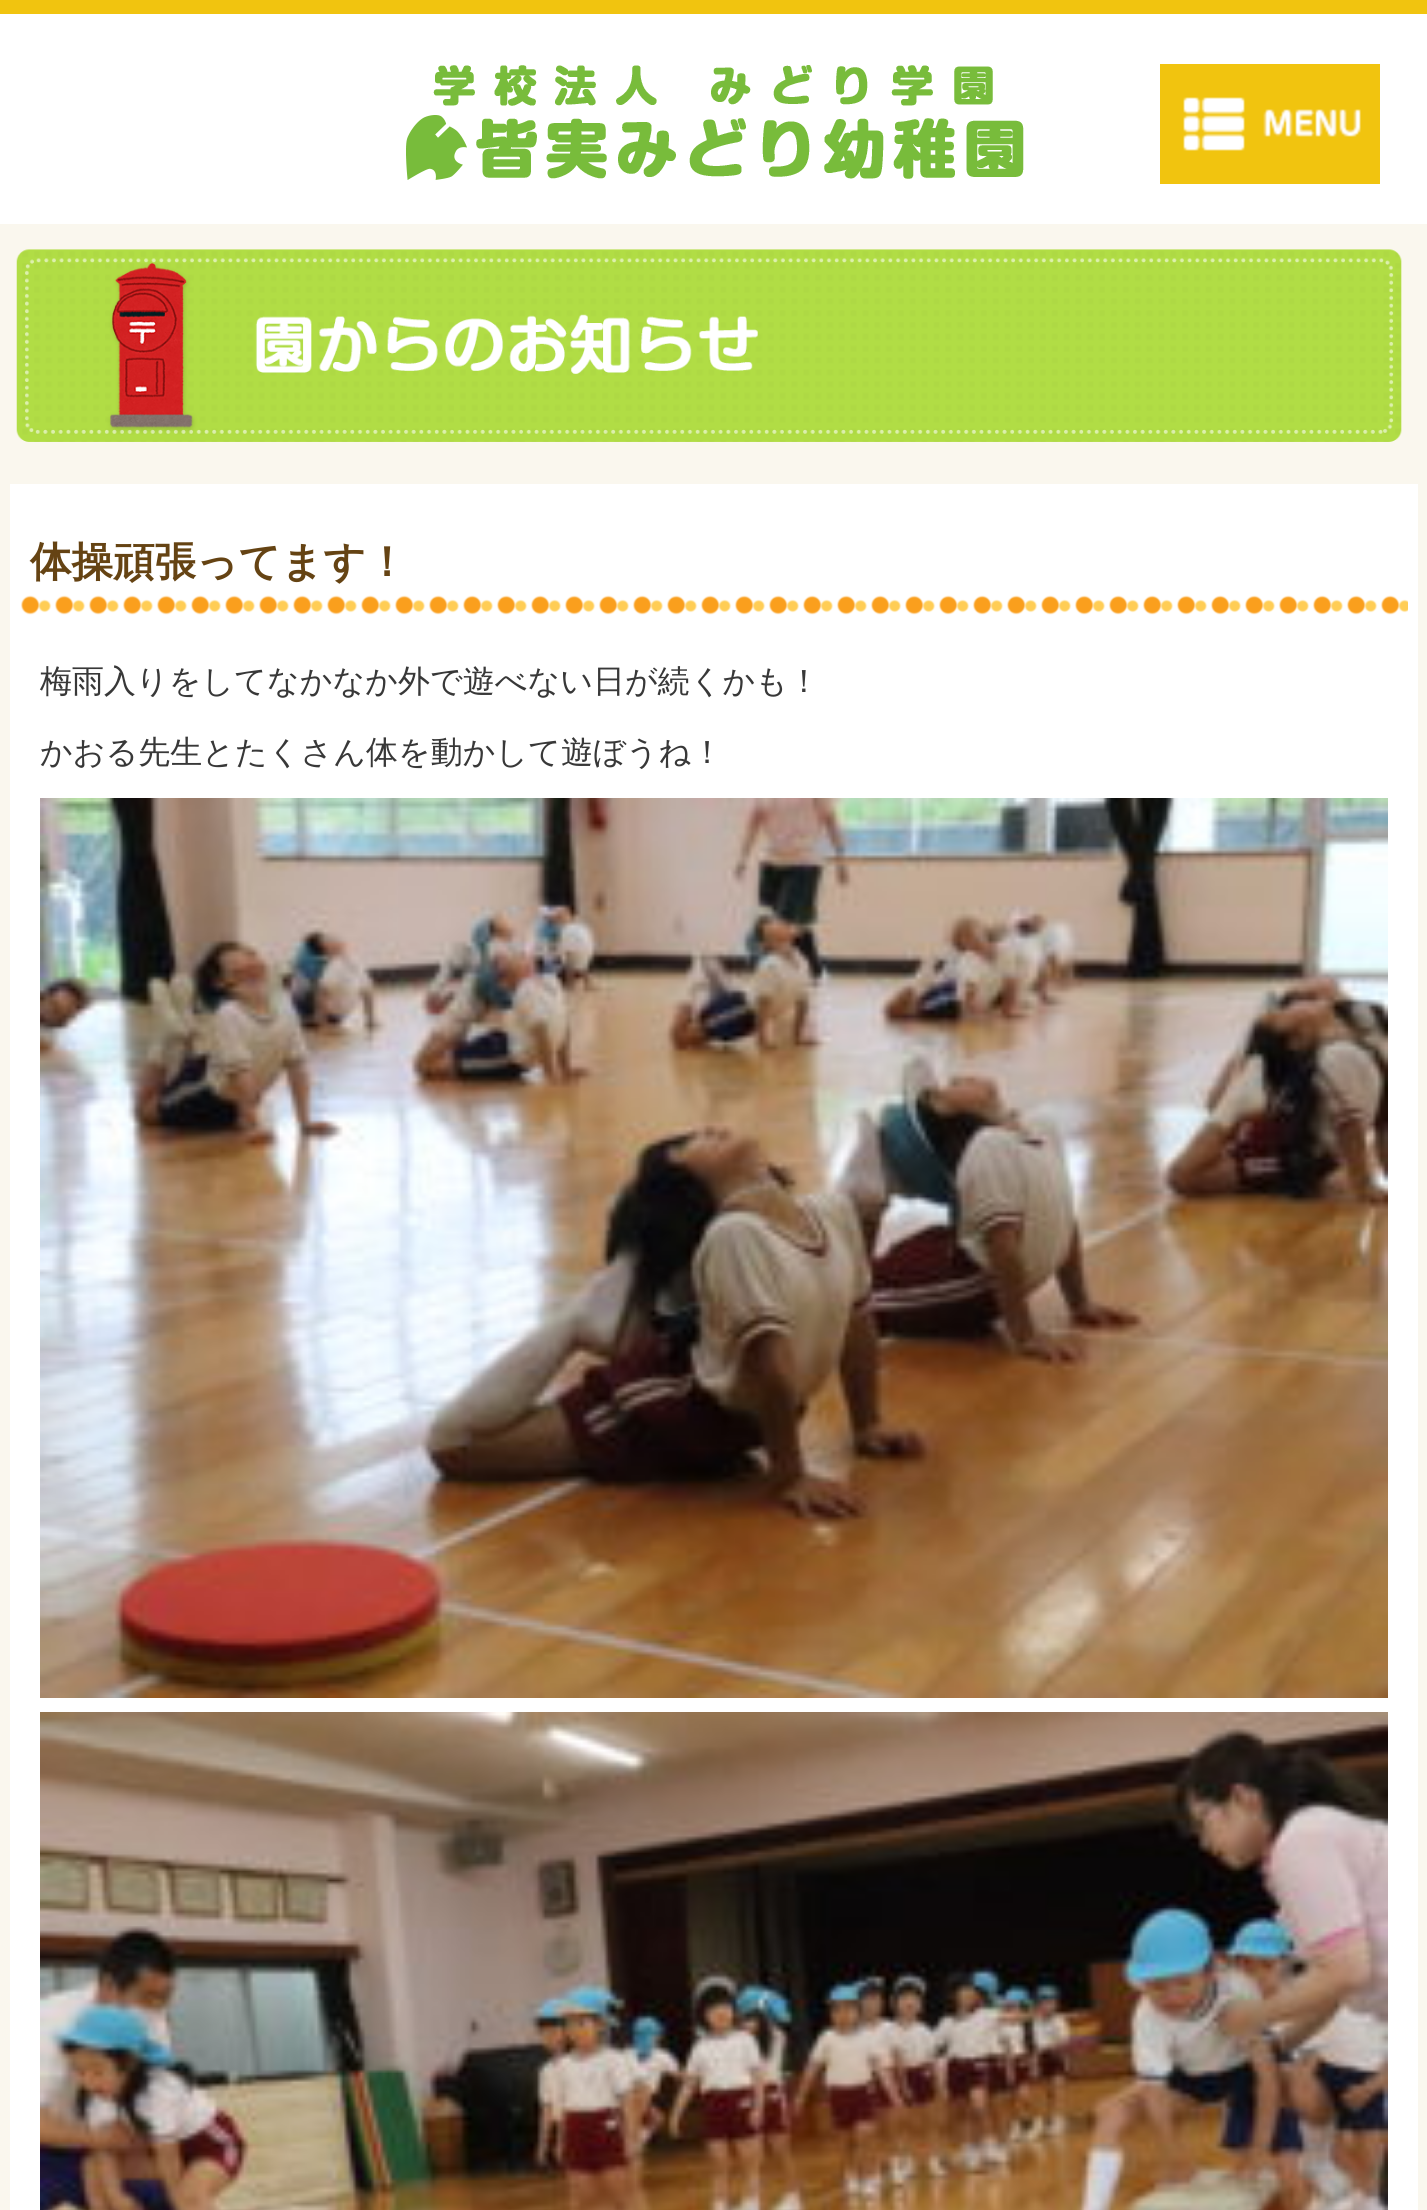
import math
import cairo


def use_color(cr, r, g, b):
  cr.set_source_rgb(r / 255, g / 255, b / 255)

def text(cr, x, y, s, family, size, color, bold=False, italic=False):
  cr.select_font_face(family, cairo.FONT_SLANT_ITALIC if italic else cairo.FONT_SLANT_NORMAL, cairo.FONT_WEIGHT_BOLD if bold else cairo.FONT_WEIGHT_NORMAL)
  cr.set_font_size(size)
  use_color(cr, *color)
  cr.move_to(x, y)
  cr.show_text(s)

def box(cr, x, y, w, h, *color):
  use_color(cr, *color)
  cr.rectangle(x, y, w, h)
  cr.fill()

def picture(cr, path, x, y, w, h):
  cr.save()
  cr.set_source_surface(cairo.ImageSurface.create_from_png(path), x, y)
  cr.rectangle(x, y, w, h)
  cr.fill()
  cr.restore()

def draw(cr):
  use_color(cr, 250, 247, 238)
  cr.paint()
  box(cr, 0, 0, 1427, 14, 241, 196, 15)
  box(cr, 0, 14, 1427, 210, 255, 255, 255)
  picture(cr, "img_01.png", 406, 65, 618, 115)
  picture(cr, "img_02.png", 1160, 64, 220, 120)
  picture(cr, "img_03.png", 16, 249, 1386, 193)
  box(cr, 10, 484, 1408, 1726, 255, 255, 255)
  picture(cr, "img_04.png", 21, 595, 1387, 20)
  picture(cr, "img_05.png", 40, 798, 1348, 900)
  picture(cr, "img_06.png", 40, 1712, 1348, 498)
  text(cr, 30, 576, "体操頑張ってます！", "WenQuanYi Zen Hei", 41.5, (101, 67, 19), bold=True)
  text(cr, 40, 692, "梅雨入りをしてなかなか外で遊べない日が続くかも！", "WenQuanYi Zen Hei Medium", 32, (56, 56, 56))
  text(cr, 40, 763, "かおる先生とたくさん体を動かして遊ぼうね！", "WenQuanYi Zen Hei Medium", 32, (56, 56, 56))


surface = cairo.ImageSurface(cairo.FORMAT_RGB24, 1427, 2210)
cr = cairo.Context(surface)
options = cairo.FontOptions()
options.set_hint_metrics(cairo.HINT_METRICS_OFF)
options.set_hint_style(cairo.HINT_STYLE_NONE)
cr.set_font_options(options)
cr.set_miter_limit(4)
draw(cr)
surface.write_to_png("out.png")
